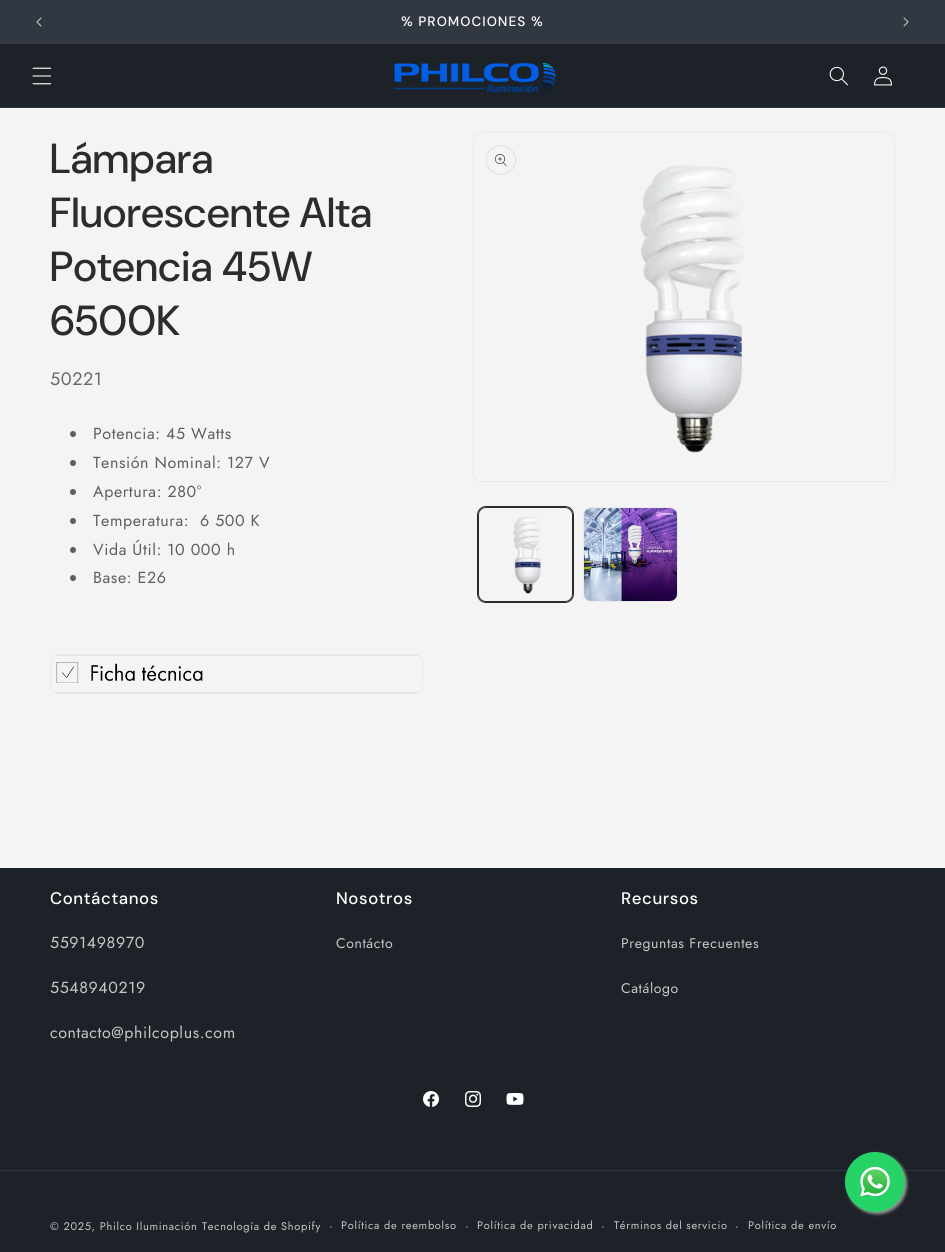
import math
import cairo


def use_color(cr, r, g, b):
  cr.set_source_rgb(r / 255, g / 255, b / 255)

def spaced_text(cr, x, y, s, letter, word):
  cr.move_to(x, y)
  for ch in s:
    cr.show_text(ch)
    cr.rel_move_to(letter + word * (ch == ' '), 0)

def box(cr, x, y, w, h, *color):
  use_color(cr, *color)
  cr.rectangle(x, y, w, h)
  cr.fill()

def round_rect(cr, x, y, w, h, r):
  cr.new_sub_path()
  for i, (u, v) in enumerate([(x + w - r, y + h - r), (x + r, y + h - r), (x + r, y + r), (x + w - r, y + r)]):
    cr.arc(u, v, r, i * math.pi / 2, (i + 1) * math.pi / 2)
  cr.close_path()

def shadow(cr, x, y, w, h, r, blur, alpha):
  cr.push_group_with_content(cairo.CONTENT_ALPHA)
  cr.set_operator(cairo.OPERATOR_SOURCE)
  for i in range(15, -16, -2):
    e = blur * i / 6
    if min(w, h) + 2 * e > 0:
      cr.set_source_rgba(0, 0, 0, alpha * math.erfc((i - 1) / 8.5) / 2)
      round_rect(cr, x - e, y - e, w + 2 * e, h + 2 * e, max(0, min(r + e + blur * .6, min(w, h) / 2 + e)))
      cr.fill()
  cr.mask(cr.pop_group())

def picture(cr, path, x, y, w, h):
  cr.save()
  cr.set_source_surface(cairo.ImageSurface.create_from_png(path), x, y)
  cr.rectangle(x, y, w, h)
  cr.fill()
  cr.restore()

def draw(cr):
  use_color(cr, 244, 244, 244)
  cr.paint()
  box(cr, 0, 0, 945, 44, 50, 56, 65)
  picture(cr, "img_01.png", 36, 17, 6, 10)
  picture(cr, "img_02.png", 903, 17, 6, 10)
  box(cr, 0, 44, 945, 63, 28, 34, 40)
  box(cr, 0, 107, 945, 1, 46, 52, 57)
  picture(cr, "img_03.png", 32, 67, 20, 18)
  picture(cr, "img_04.png", 394, 62, 162, 31)
  picture(cr, "img_05.png", 829, 66, 19, 20)
  picture(cr, "img_06.png", 874, 66, 18, 20)
  use_color(cr, 93, 94, 95)
  cr.arc(73, 434, 3, 0, 2 * math.pi)
  cr.fill()
  cr.arc(73, 463, 3, 0, 2 * math.pi)
  cr.fill()
  cr.arc(73, 492, 3, 0, 2 * math.pi)
  cr.fill()
  cr.arc(73, 521, 3, 0, 2 * math.pi)
  cr.fill()
  cr.arc(73, 550, 3, 0, 2 * math.pi)
  cr.fill()
  cr.arc(73, 578, 3, 0, 2 * math.pi)
  cr.fill()
  round_rect(cr, 50.5, 654.5, 372, 39, 7.5)
  use_color(cr, 234, 234, 234)
  cr.set_line_width(1)
  cr.stroke()
  picture(cr, "img_07.png", 55, 655, 363, 38)
  round_rect(cr, 473.5, 132.5, 421, 349, 7.5)
  cr.stroke()
  cr.arc(501, 160, 14.5, 0, 2 * math.pi)
  use_color(cr, 224, 224, 224)
  cr.stroke()
  picture(cr, "img_08.png", 495, 154, 12, 12)
  picture(cr, "img_09.png", 640, 165, 104, 288)
  round_rect(cr, 477.5, 506.5, 96, 96, 8.5)
  use_color(cr, 43, 44, 45)
  cr.stroke()
  round_rect(cr, 478.5, 507.5, 94, 94, 7.5)
  cr.stroke()
  picture(cr, "img_10.png", 513, 516, 28, 78)
  round_rect(cr, 583.5, 507.5, 94, 94, 7.5)
  use_color(cr, 234, 234, 234)
  cr.stroke()
  picture(cr, "img_11.png", 584, 508, 93, 93)
  box(cr, 0, 868, 945, 384, 28, 34, 40)
  picture(cr, "img_12.png", 423, 1091, 16, 16)
  picture(cr, "img_13.png", 465, 1091, 16, 16)
  picture(cr, "img_14.png", 506, 1093, 18, 12)
  box(cr, 0, 1170, 945, 1, 46, 52, 57)
  use_color(cr, 153, 153, 153)
  shadow(cr, 847, 1154, 60, 60, 30, 1.5, 1)
  use_color(cr, 37, 211, 102)
  cr.arc(875, 1182, 30, 0, 2 * math.pi)
  cr.fill()
  picture(cr, "img_15.png", 860, 1166, 30, 31)
  cr.select_font_face("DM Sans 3 Medium")
  cr.set_font_size(13.6)
  use_color(cr, 255, 255, 255)
  spaced_text(cr, 401, 26, "% PROMOCIONES %", 1, 0)
  cr.select_font_face("DM Sans Medium")
  cr.set_font_size(42)
  use_color(cr, 43, 44, 45)
  spaced_text(cr, 50, 173, "Lámpara", 0.6, 0)
  spaced_text(cr, 50, 227, "Fluorescente Alta", 0.6, 0)
  spaced_text(cr, 50, 281, "Potencia 45W", 0.6, 0)
  spaced_text(cr, 50, 335, "6500K", 0.6, 0)
  cr.select_font_face("Jost")
  cr.set_font_size(18)
  use_color(cr, 103, 104, 105)
  spaced_text(cr, 50, 385, "50221", 0.6, 0)
  cr.set_font_size(16)
  use_color(cr, 93, 94, 95)
  spaced_text(cr, 93, 439, "Potencia: 45 Watts", 0.6, 0)
  spaced_text(cr, 93, 468, "Tensión Nominal: 127 V", 0.6, 0)
  spaced_text(cr, 93, 497, "Apertura: 280°", 0.6, 0)
  spaced_text(cr, 93, 526, "Temperatura:  6 500 K", 0.6, 0)
  spaced_text(cr, 93, 555, "Vida Útil: 10 000 h", 0.6, 0)
  spaced_text(cr, 93, 583, "Base: E26", 0.6, 0)
  cr.select_font_face("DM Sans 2 Medium")
  cr.set_font_size(16.75)
  use_color(cr, 255, 255, 255)
  spaced_text(cr, 50, 904, "Contáctanos", 0.6, 0)
  cr.select_font_face("Jost")
  cr.set_font_size(16)
  use_color(cr, 198, 200, 201)
  spaced_text(cr, 50, 948, "5591498970", 0.6, 0)
  spaced_text(cr, 50, 993, "5548940219", 0.6, 0)
  spaced_text(cr, 50, 1038, "contacto@philcoplus.com", 0.6, 0)
  cr.select_font_face("DM Sans 2 Medium")
  cr.set_font_size(16.75)
  use_color(cr, 255, 255, 255)
  spaced_text(cr, 336, 904, "Nosotros", 0.6, 0)
  cr.select_font_face("Jost")
  cr.set_font_size(14)
  use_color(cr, 198, 200, 201)
  spaced_text(cr, 336, 948, "Contácto", 0.6, 0)
  cr.select_font_face("DM Sans 2 Medium")
  cr.set_font_size(16.75)
  use_color(cr, 255, 255, 255)
  spaced_text(cr, 621, 904, "Recursos", 0.6, 0)
  cr.select_font_face("Jost")
  cr.set_font_size(14)
  use_color(cr, 198, 200, 201)
  spaced_text(cr, 621, 948, "Preguntas Frecuentes", 0.6, 0)
  spaced_text(cr, 621, 993, "Catálogo", 0.6, 0)
  cr.set_font_size(11)
  spaced_text(cr, 50, 1230, "© 2025, Philco Iluminación", 0.7, 0)
  spaced_text(cr, 202, 1230, "Tecnología de Shopify", 0.7, 0)
  cr.set_font_size(12)
  spaced_text(cr, 329, 1230, "·", 0.7, 0)
  cr.set_font_size(11)
  spaced_text(cr, 341, 1229, "Política de reembolso", 0.7, 0)
  cr.set_font_size(12)
  spaced_text(cr, 465, 1230, "·", 0.7, 0)
  cr.set_font_size(11)
  spaced_text(cr, 477, 1229, "Política de privacidad", 0.7, 0)
  cr.set_font_size(12)
  spaced_text(cr, 601, 1230, "·", 0.7, 0)
  cr.set_font_size(11)
  spaced_text(cr, 614, 1229, "Términos del servicio", 0.7, 0)
  cr.set_font_size(12)
  spaced_text(cr, 735, 1230, "·", 0.7, 0)
  cr.set_font_size(11)
  spaced_text(cr, 748, 1229, "Política de envío", 0.7, 0)


surface = cairo.ImageSurface(cairo.FORMAT_RGB24, 945, 1252)
cr = cairo.Context(surface)
options = cairo.FontOptions()
options.set_hint_metrics(cairo.HINT_METRICS_OFF)
options.set_hint_style(cairo.HINT_STYLE_NONE)
cr.set_font_options(options)
cr.set_miter_limit(4)
draw(cr)
surface.write_to_png("out.png")
